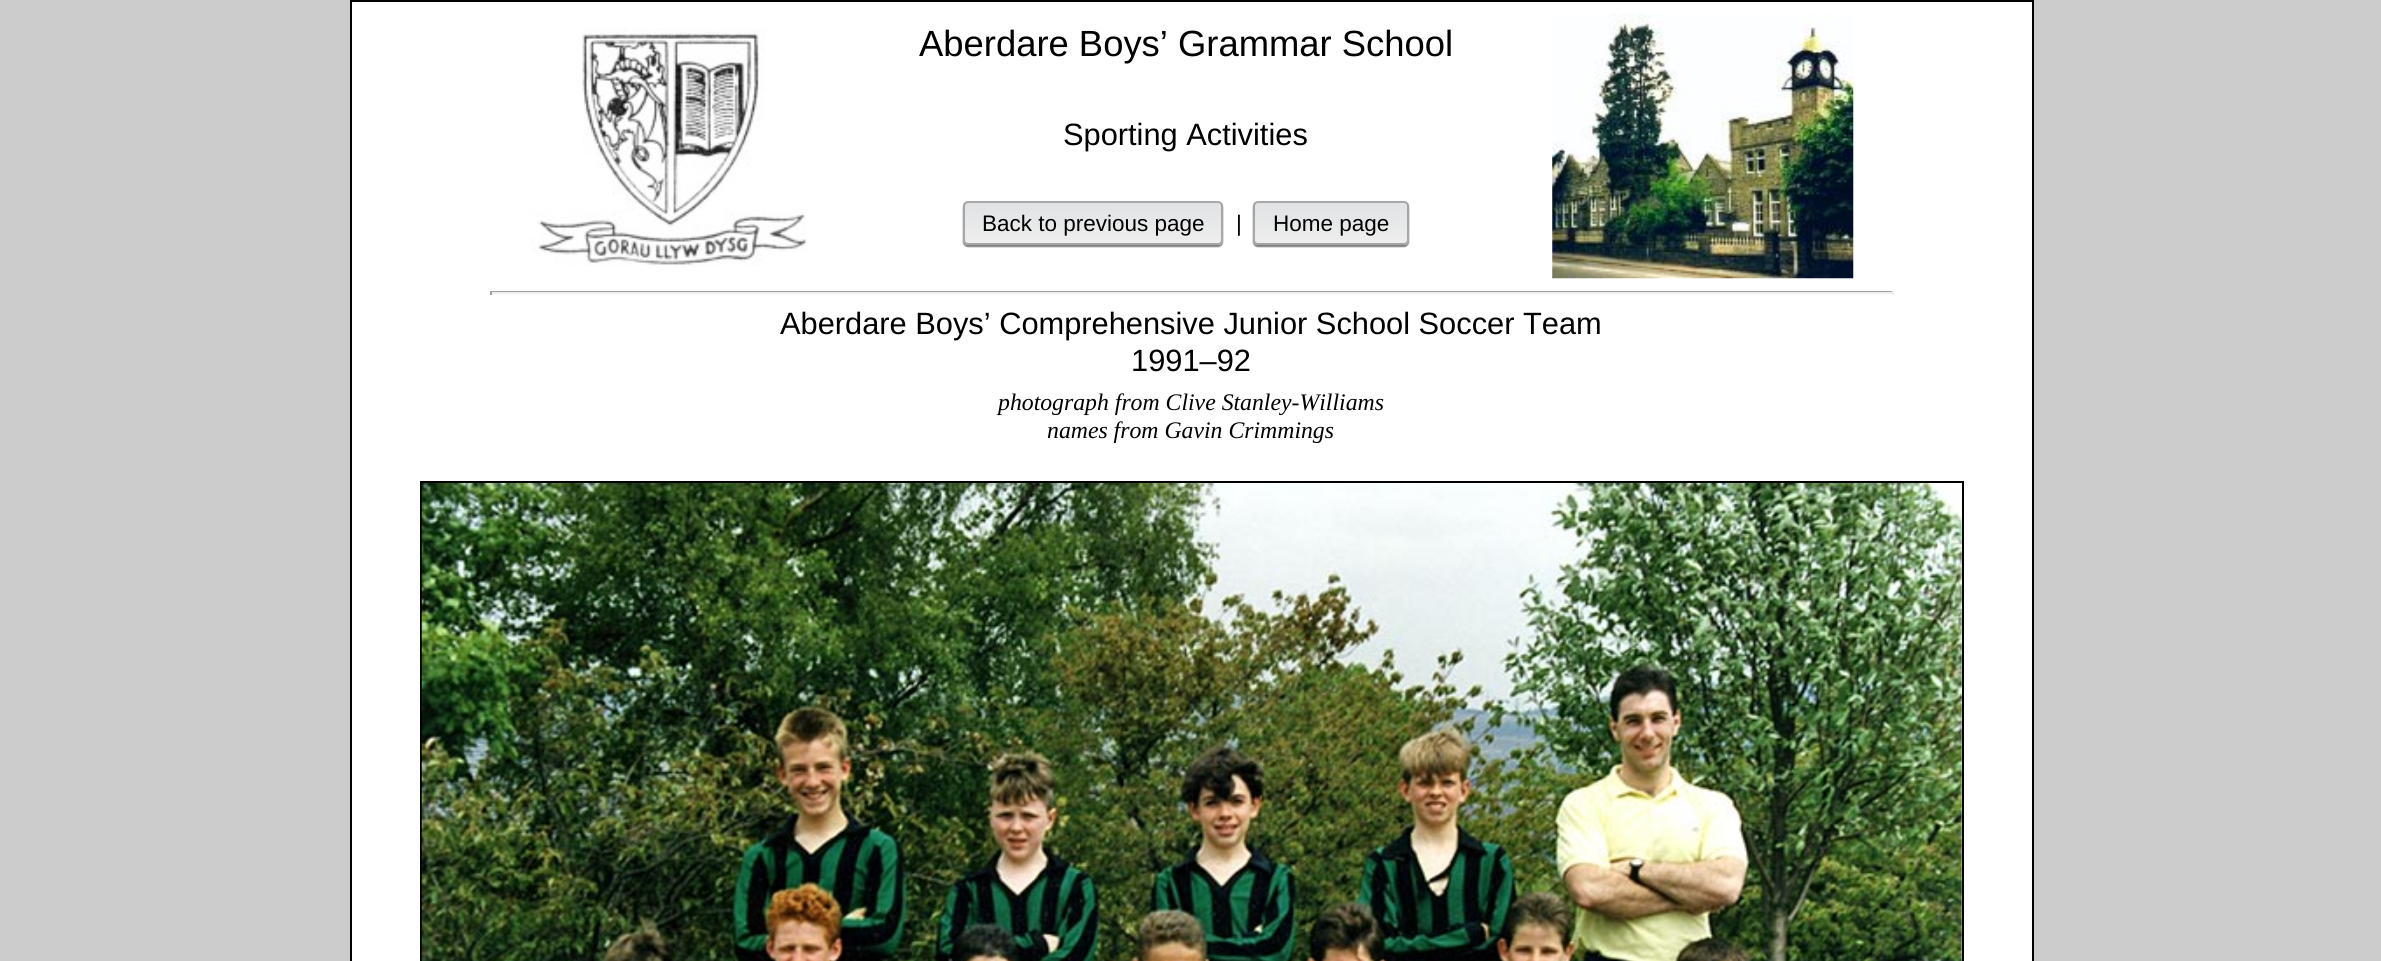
import math
import cairo


def use_color(cr, r, g, b):
  cr.set_source_rgb(r / 255, g / 255, b / 255)

def text(cr, x, y, s, family, size, color, bold=False, italic=False):
  cr.select_font_face(family, cairo.FONT_SLANT_ITALIC if italic else cairo.FONT_SLANT_NORMAL, cairo.FONT_WEIGHT_BOLD if bold else cairo.FONT_WEIGHT_NORMAL)
  cr.set_font_size(size)
  use_color(cr, *color)
  cr.move_to(x, y)
  cr.show_text(s)

def box(cr, x, y, w, h, *color):
  use_color(cr, *color)
  cr.rectangle(x, y, w, h)
  cr.fill()

def round_rect(cr, x, y, w, h, r):
  cr.new_sub_path()
  for i, (u, v) in enumerate([(x + w - r, y + h - r), (x + r, y + h - r), (x + r, y + r), (x + w - r, y + r)]):
    cr.arc(u, v, r, i * math.pi / 2, (i + 1) * math.pi / 2)
  cr.close_path()

def shadow(cr, x, y, w, h, r, blur, alpha):
  cr.push_group_with_content(cairo.CONTENT_ALPHA)
  cr.set_operator(cairo.OPERATOR_SOURCE)
  for i in range(15, -16, -2):
    e = blur * i / 6
    if min(w, h) + 2 * e > 0:
      cr.set_source_rgba(0, 0, 0, alpha * math.erfc((i - 1) / 8.5) / 2)
      round_rect(cr, x - e, y - e, w + 2 * e, h + 2 * e, max(0, min(r + e + blur * .6, min(w, h) / 2 + e)))
      cr.fill()
  cr.mask(cr.pop_group())

def picture(cr, path, x, y, w, h):
  cr.save()
  cr.set_source_surface(cairo.ImageSurface.create_from_png(path), x, y)
  cr.rectangle(x, y, w, h)
  cr.fill()
  cr.restore()

def draw(cr):
  use_color(cr, 204, 204, 204)
  cr.paint()
  use_color(cr, 255, 255, 255)
  cr.rectangle(351, 1, 1682, 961)
  cr.fill_preserve()
  use_color(cr, 0, 0, 0)
  cr.stroke()
  picture(cr, "img_01.png", 530, 28, 277, 238)
  use_color(cr, 0, 0, 0)
  shadow(cr, 963, 203, 260, 44, 5, 0.5, 0.5)
  use_color(cr, 238, 238, 238)
  round_rect(cr, 963, 201, 260, 44, 5)
  cr.fill()
  cr.save()
  round_rect(cr, 963, 201, 260, 44, 5)
  cr.clip()
  gradient = cairo.LinearGradient(1093, 203, 1093, 243)
  gradient.add_color_stop_rgba(0, 0.878, 0.886, 0.894, 1)
  gradient.add_color_stop_rgba(1, 0.878, 0.886, 0.894, 0)
  cr.set_source(gradient)
  cr.rectangle(963, 203, 260, 39)
  cr.fill()
  gradient = cairo.LinearGradient(1093, 243, 1093, 284)
  gradient.add_color_stop_rgba(0, 0.878, 0.886, 0.894, 1)
  gradient.add_color_stop_rgba(1, 0.878, 0.886, 0.894, 0)
  cr.set_source(gradient)
  cr.rectangle(963, 243, 260, 2)
  cr.fill()
  cr.restore()
  round_rect(cr, 964, 202, 258, 42, 4)
  cr.set_source_rgba(0.392, 0.392, 0.392, 0.5)
  cr.stroke()
  use_color(cr, 0, 0, 0)
  shadow(cr, 1253, 203, 156, 44, 5, 0.5, 0.5)
  use_color(cr, 238, 238, 238)
  round_rect(cr, 1253, 201, 156, 44, 5)
  cr.fill()
  cr.save()
  round_rect(cr, 1253, 201, 156, 44, 5)
  cr.clip()
  gradient = cairo.LinearGradient(1331, 203, 1331, 243)
  gradient.add_color_stop_rgba(0, 0.878, 0.886, 0.894, 1)
  gradient.add_color_stop_rgba(1, 0.878, 0.886, 0.894, 0)
  cr.set_source(gradient)
  cr.rectangle(1253, 203, 156, 39)
  cr.fill()
  gradient = cairo.LinearGradient(1331, 243, 1331, 284)
  gradient.add_color_stop_rgba(0, 0.878, 0.886, 0.894, 1)
  gradient.add_color_stop_rgba(1, 0.878, 0.886, 0.894, 0)
  cr.set_source(gradient)
  cr.rectangle(1253, 243, 156, 2)
  cr.fill()
  cr.restore()
  round_rect(cr, 1254, 202, 154, 42, 4)
  cr.set_source_rgba(0.392, 0.392, 0.392, 0.5)
  cr.stroke()
  picture(cr, "img_02.png", 1552, 14, 302, 265)
  box(cr, 490, 291, 1404, 1, 159, 159, 159)
  box(cr, 1892, 291, 2, 4, 238, 238, 238)
  box(cr, 490, 292, 1404, 2, 238, 238, 238)
  box(cr, 490, 291, 2, 4, 159, 159, 159)
  cr.rectangle(421, 482, 1542, 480)
  use_color(cr, 0, 0, 0)
  cr.stroke()
  picture(cr, "img_03.png", 421, 483, 1541, 478)
  text(cr, 919, 56, "Aberdare Boys’ Grammar School", "Liberation Sans", 36.4, (0, 0, 0))
  text(cr, 1063, 145, "Sporting Activities", "Liberation Sans", 30.8, (0, 0, 0))
  text(cr, 982, 231, "Back to previous page", "Liberation Sans", 22.5, (0, 0, 0))
  text(cr, 1236, 231, "|", "Liberation Sans", 22.5, (0, 0, 0))
  text(cr, 1273, 231, "Home page", "Liberation Sans", 22.5, (0, 0, 0))
  text(cr, 780, 334, "Aberdare Boys’ Comprehensive Junior School Soccer Team", "Liberation Sans", 30.8, (0, 0, 0))
  text(cr, 1131, 371, "1991–92", "Liberation Sans", 30.8, (0, 0, 0))
  text(cr, 998, 410, "photograph from Clive Stanley-Williams", "Liberation Serif", 23.75, (0, 0, 0), italic=True)
  text(cr, 1047, 438, "names from Gavin Crimmings", "Liberation Serif", 23.75, (0, 0, 0), italic=True)


surface = cairo.ImageSurface(cairo.FORMAT_RGB24, 2381, 961)
cr = cairo.Context(surface)
options = cairo.FontOptions()
options.set_hint_metrics(cairo.HINT_METRICS_OFF)
options.set_hint_style(cairo.HINT_STYLE_NONE)
cr.set_font_options(options)
cr.set_miter_limit(4)
draw(cr)
surface.write_to_png("out.png")
